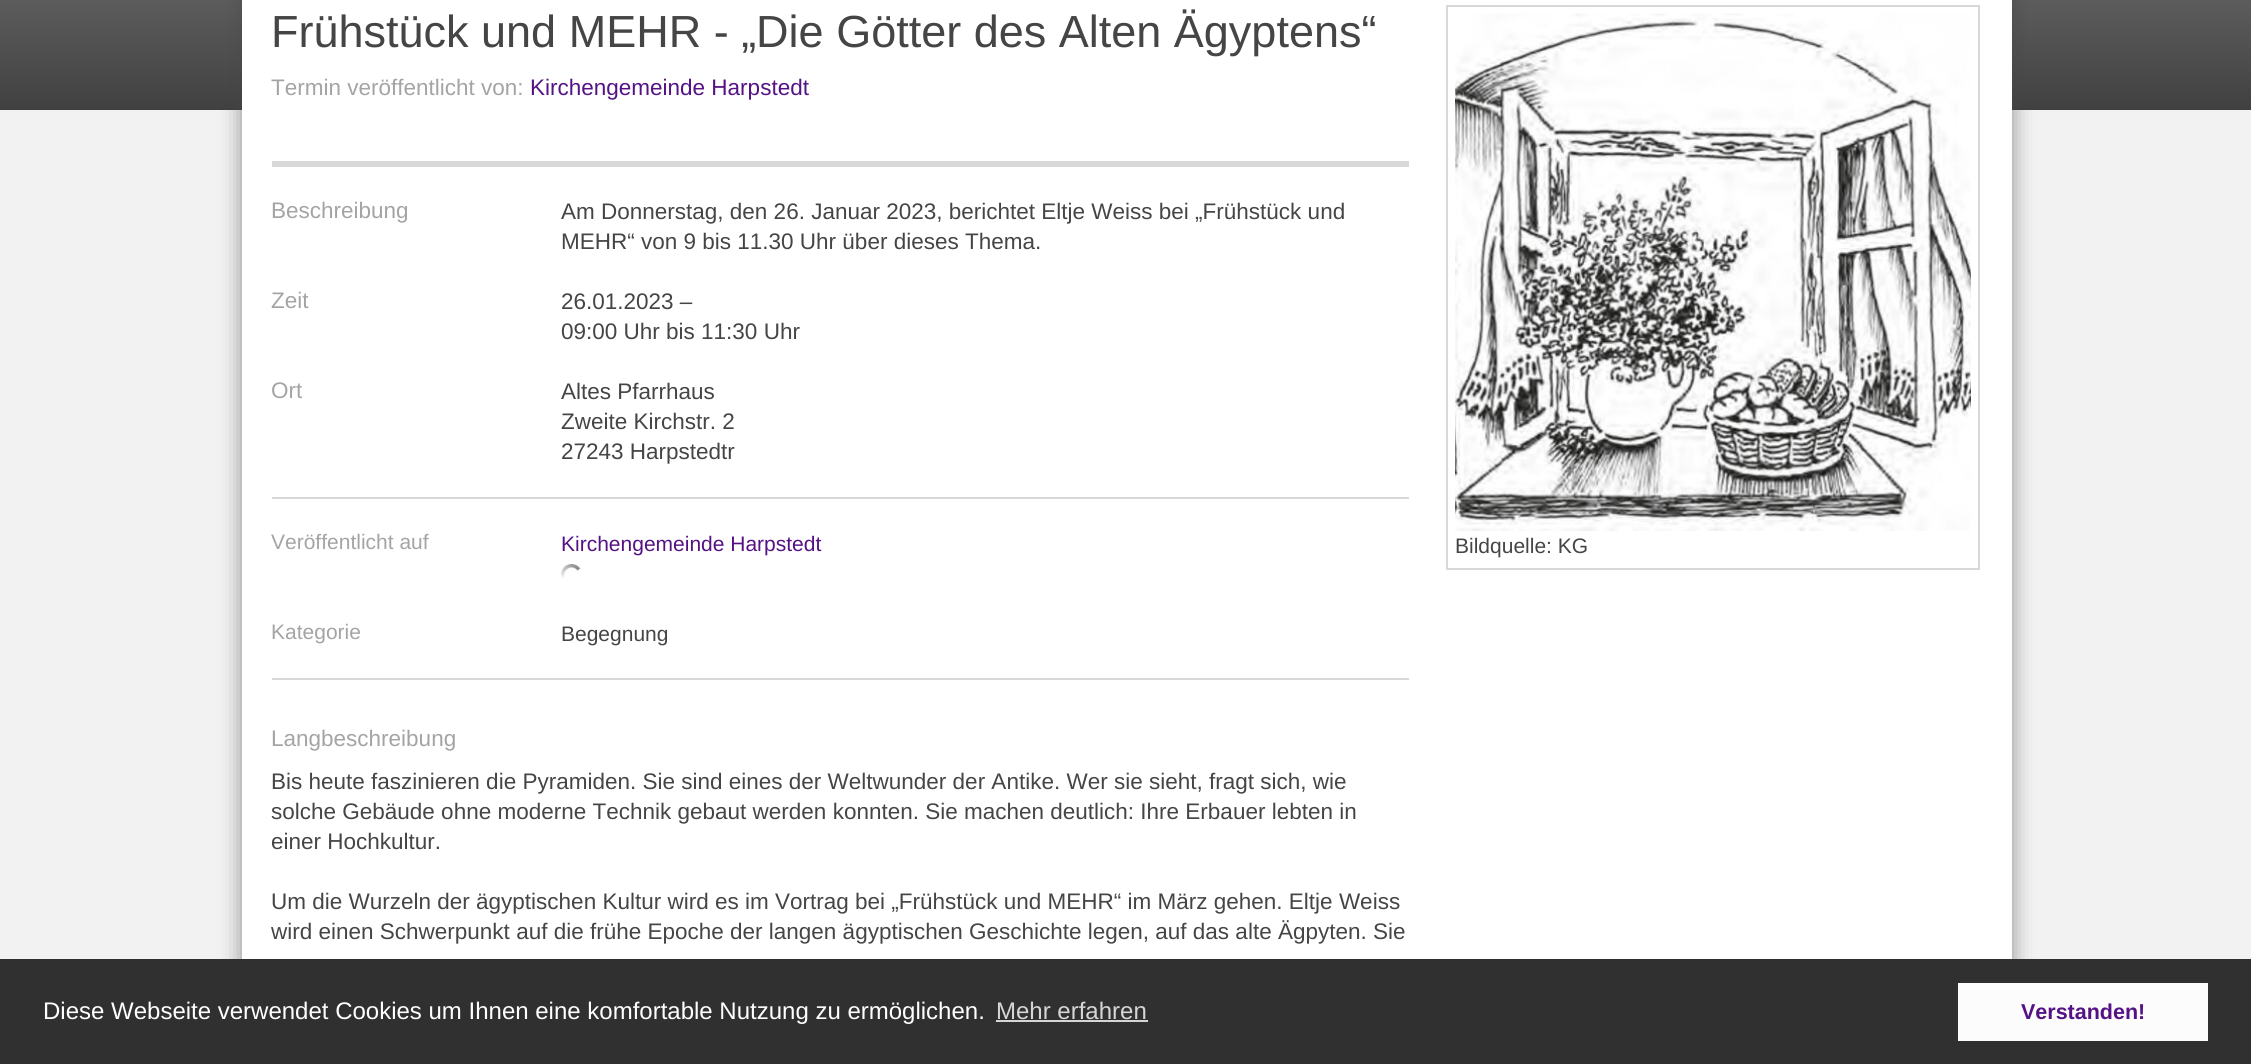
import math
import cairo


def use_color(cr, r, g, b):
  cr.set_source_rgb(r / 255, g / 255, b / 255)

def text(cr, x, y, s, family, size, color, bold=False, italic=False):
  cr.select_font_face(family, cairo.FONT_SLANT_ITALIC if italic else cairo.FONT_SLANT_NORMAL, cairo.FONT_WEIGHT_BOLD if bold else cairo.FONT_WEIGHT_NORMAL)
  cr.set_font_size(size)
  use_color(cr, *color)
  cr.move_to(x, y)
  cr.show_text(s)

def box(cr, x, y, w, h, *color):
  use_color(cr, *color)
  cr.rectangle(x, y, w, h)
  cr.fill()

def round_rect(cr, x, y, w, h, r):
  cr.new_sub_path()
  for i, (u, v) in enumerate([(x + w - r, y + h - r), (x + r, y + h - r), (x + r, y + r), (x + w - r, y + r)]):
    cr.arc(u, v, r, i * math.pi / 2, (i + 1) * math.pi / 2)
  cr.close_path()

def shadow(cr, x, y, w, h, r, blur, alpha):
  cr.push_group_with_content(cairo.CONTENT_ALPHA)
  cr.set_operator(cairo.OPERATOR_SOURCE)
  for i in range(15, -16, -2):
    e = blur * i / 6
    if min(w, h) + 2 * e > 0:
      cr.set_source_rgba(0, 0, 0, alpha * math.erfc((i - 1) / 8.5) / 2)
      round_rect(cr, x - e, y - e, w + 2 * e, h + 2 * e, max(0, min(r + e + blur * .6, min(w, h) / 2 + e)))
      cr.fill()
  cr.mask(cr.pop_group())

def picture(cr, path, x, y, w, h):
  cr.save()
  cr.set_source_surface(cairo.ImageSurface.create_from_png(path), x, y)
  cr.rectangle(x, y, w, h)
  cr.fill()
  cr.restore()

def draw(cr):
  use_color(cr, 242, 242, 242)
  cr.paint()
  gradient = cairo.LinearGradient(0, 110, 0, -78)
  gradient.add_color_stop_rgba(0, 0.251, 0.251, 0.251, 1)
  gradient.add_color_stop_rgba(0.15, 0.282, 0.282, 0.282, 1)
  gradient.add_color_stop_rgba(0.9, 0.42, 0.42, 0.42, 1)
  gradient.add_color_stop_rgba(1, 0.357, 0.357, 0.357, 1)
  cr.set_source(gradient)
  cr.rectangle(0, 0, 2251, 110)
  cr.fill()
  use_color(cr, 68, 68, 68)
  shadow(cr, 242, -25, 1770, 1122, 0, 11, 0.6)
  box(cr, 242, 0, 1770, 959, 255, 255, 255)
  box(cr, 272, 161, 1137, 6, 216, 216, 216)
  box(cr, 272, 497, 1137, 2, 216, 216, 216)
  picture(cr, "img_01.png", 561, 564, 20, 15)
  box(cr, 272, 678, 1137, 2, 216, 216, 216)
  cr.rectangle(1447, 6, 532, 563)
  cr.stroke()
  picture(cr, "img_02.png", 1455, 13, 516, 518)
  box(cr, 0, 959, 2251, 105, 48, 48, 48)
  box(cr, 996, 1020, 152, 2, 214, 214, 214)
  box(cr, 1958, 983, 250, 58, 252, 252, 252)
  text(cr, 271, 47, "Frühstück und MEHR - „Die Götter des Alten Ägyptens“", "Liberation Sans", 45, (69, 69, 69))
  text(cr, 271, 95, "Termin veröffentlicht von:", "Liberation Sans", 22.5, (164, 164, 164))
  text(cr, 530, 95, "Kirchengemeinde Harpstedt", "Liberation Sans", 22.5, (85, 18, 133))
  text(cr, 271, 218, "Beschreibung", "Liberation Sans", 22.5, (164, 164, 164))
  text(cr, 561, 219, "Am Donnerstag, den 26. Januar 2023, berichtet Eltje Weiss bei „Frühstück und", "Liberation Sans", 22.5, (69, 69, 69))
  text(cr, 561, 249, "MEHR“ von 9 bis 11.30 Uhr über dieses Thema.", "Liberation Sans", 22.5, (69, 69, 69))
  text(cr, 271, 308, "Zeit", "Liberation Sans", 22.5, (164, 164, 164))
  text(cr, 561, 309, "26.01.2023 –", "Liberation Sans", 22.5, (69, 69, 69))
  text(cr, 561, 339, "09:00 Uhr bis 11:30 Uhr", "Liberation Sans", 22.5, (69, 69, 69))
  text(cr, 271, 398, "Ort", "Liberation Sans", 22.5, (164, 164, 164))
  text(cr, 561, 399, "Altes Pfarrhaus", "Liberation Sans", 22.5, (69, 69, 69))
  text(cr, 561, 429, "Zweite Kirchstr. 2", "Liberation Sans", 22.5, (69, 69, 69))
  text(cr, 561, 459, "27243 Harpstedtr", "Liberation Sans", 22.5, (69, 69, 69))
  text(cr, 271, 549, "Veröffentlicht auf", "Liberation Sans", 21, (164, 164, 164))
  text(cr, 561, 551, "Kirchengemeinde Harpstedt", "Liberation Sans", 21, (85, 18, 133))
  text(cr, 271, 639, "Kategorie", "Liberation Sans", 21, (164, 164, 164))
  text(cr, 561, 641, "Begegnung", "Liberation Sans", 21, (69, 69, 69))
  text(cr, 271, 746, "Langbeschreibung", "Liberation Sans", 22.5, (164, 164, 164))
  text(cr, 271, 789, "Bis heute faszinieren die Pyramiden. Sie sind eines der Weltwunder der Antike. Wer sie sieht, fragt sich, wie", "Liberation Sans", 22.5, (69, 69, 69))
  text(cr, 271, 819, "solche Gebäude ohne moderne Technik gebaut werden konnten. Sie machen deutlich: Ihre Erbauer lebten in", "Liberation Sans", 22.5, (69, 69, 69))
  text(cr, 271, 849, "einer Hochkultur.", "Liberation Sans", 22.5, (69, 69, 69))
  text(cr, 271, 909, "Um die Wurzeln der ägyptischen Kultur wird es im Vortrag bei „Frühstück und MEHR“ im März gehen. Eltje Weiss", "Liberation Sans", 22.5, (69, 69, 69))
  text(cr, 271, 939, "wird einen Schwerpunkt auf die frühe Epoche der langen ägyptischen Geschichte legen, auf das alte Ägpyten. Sie", "Liberation Sans", 22.5, (69, 69, 69))
  text(cr, 1455, 553, "Bildquelle: KG", "Liberation Sans", 21, (69, 69, 69))
  text(cr, 43, 1019, "Diese Webseite verwendet Cookies um Ihnen eine komfortable Nutzung zu ermöglichen.", "Liberation Sans", 24, (255, 255, 255))
  text(cr, 996, 1019, "Mehr erfahren", "Liberation Sans", 24, (214, 214, 214))
  text(cr, 2021, 1019, "Verstanden!", "Liberation Sans", 21.5, (85, 18, 133), bold=True)


surface = cairo.ImageSurface(cairo.FORMAT_RGB24, 2251, 1064)
cr = cairo.Context(surface)
options = cairo.FontOptions()
options.set_hint_metrics(cairo.HINT_METRICS_OFF)
options.set_hint_style(cairo.HINT_STYLE_NONE)
cr.set_font_options(options)
cr.set_miter_limit(4)
draw(cr)
surface.write_to_png("out.png")
